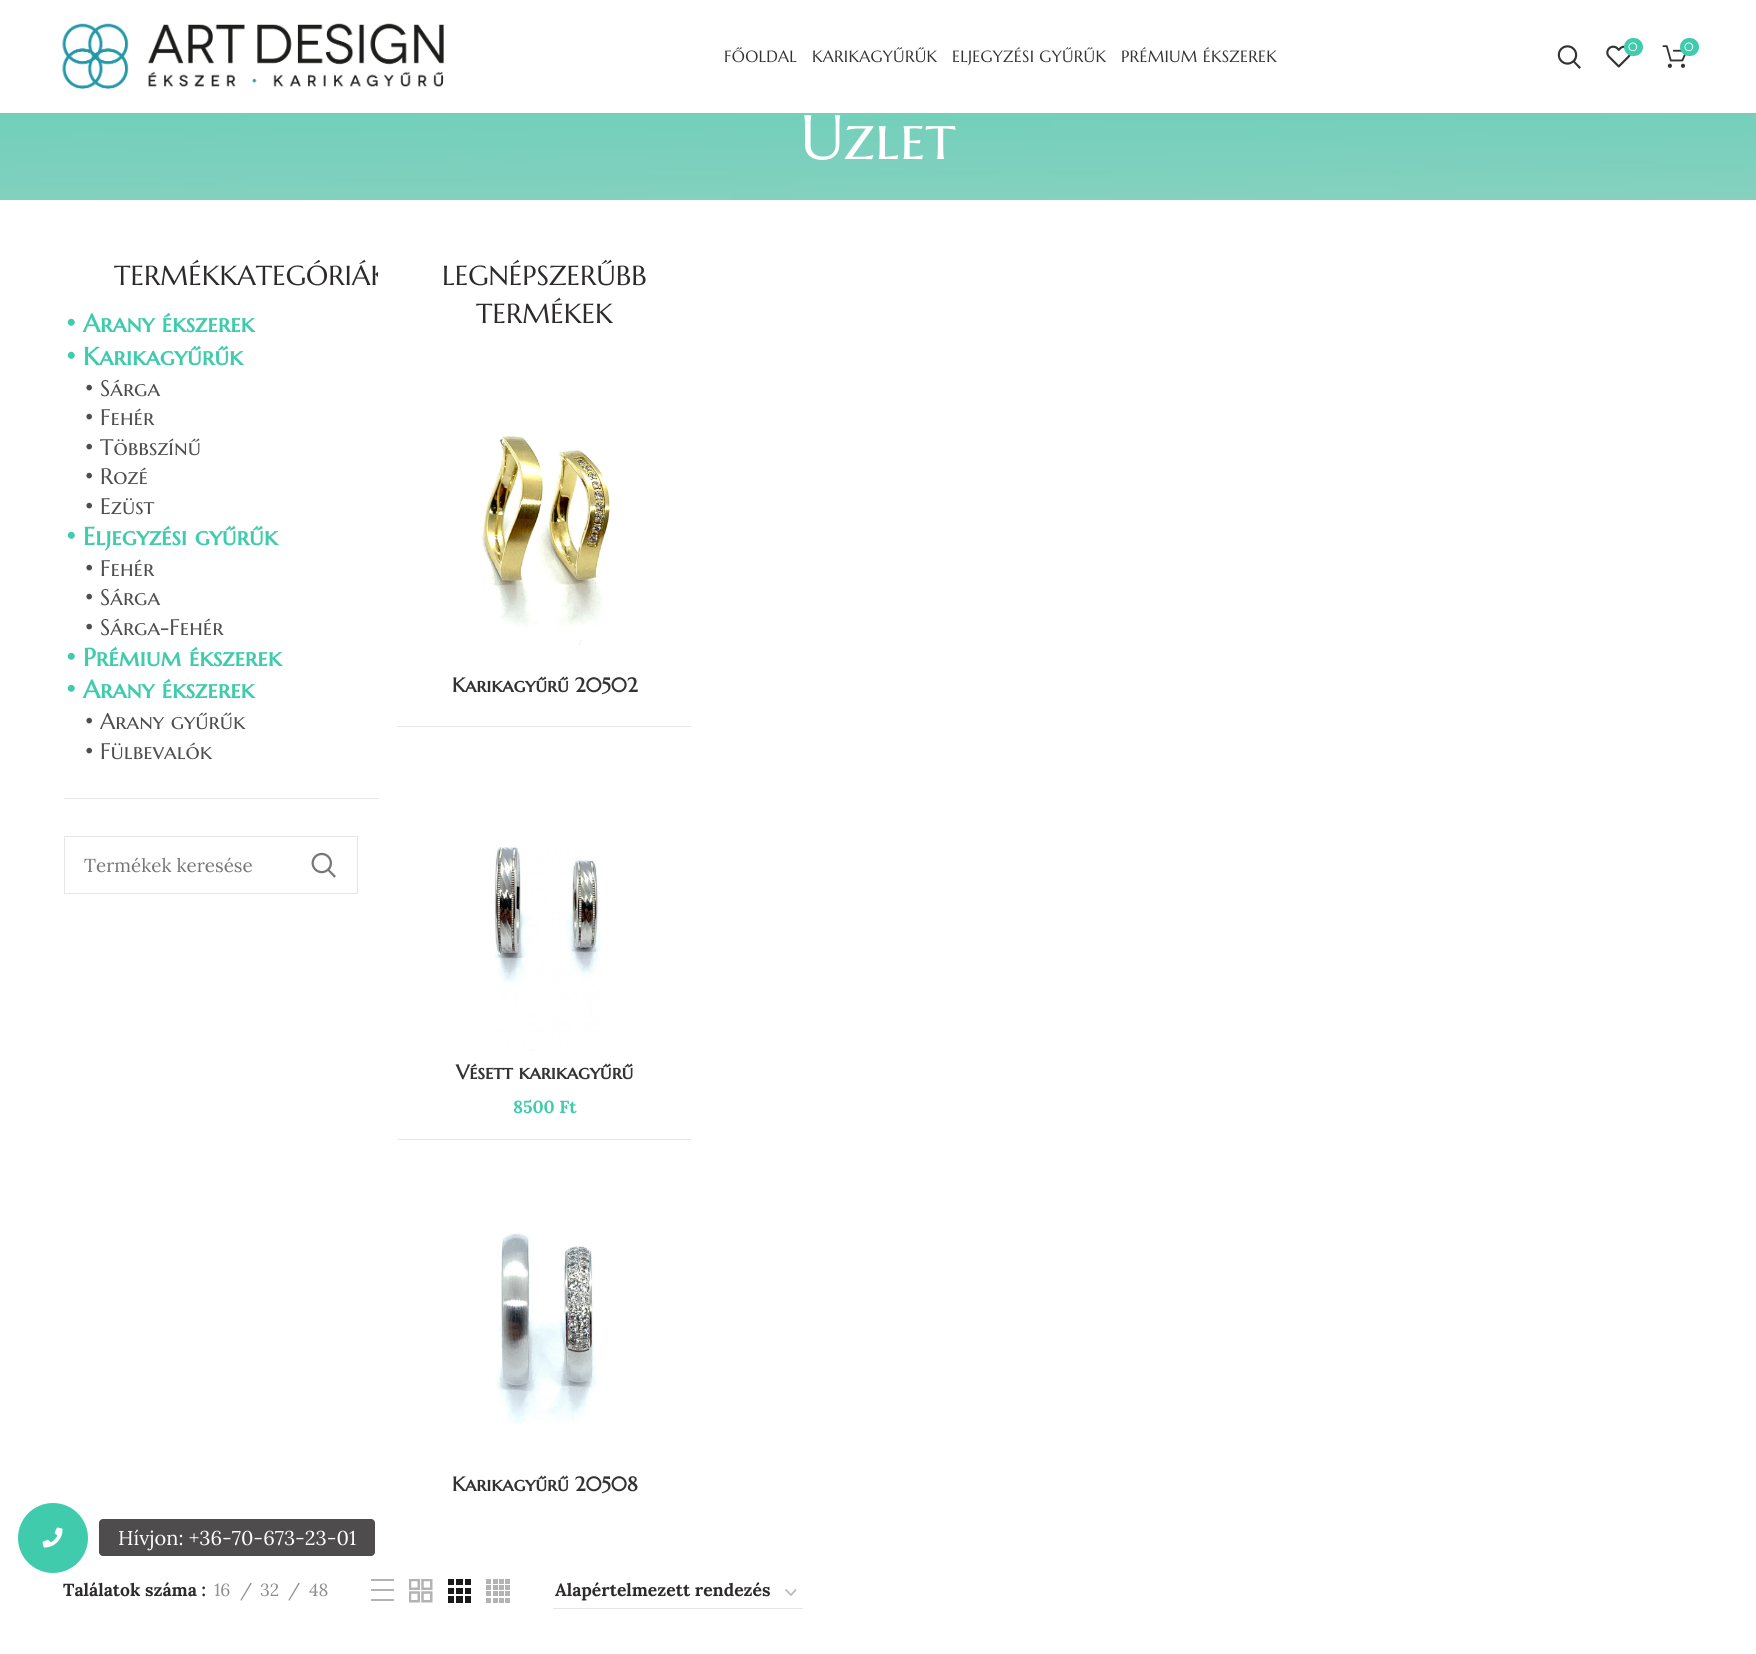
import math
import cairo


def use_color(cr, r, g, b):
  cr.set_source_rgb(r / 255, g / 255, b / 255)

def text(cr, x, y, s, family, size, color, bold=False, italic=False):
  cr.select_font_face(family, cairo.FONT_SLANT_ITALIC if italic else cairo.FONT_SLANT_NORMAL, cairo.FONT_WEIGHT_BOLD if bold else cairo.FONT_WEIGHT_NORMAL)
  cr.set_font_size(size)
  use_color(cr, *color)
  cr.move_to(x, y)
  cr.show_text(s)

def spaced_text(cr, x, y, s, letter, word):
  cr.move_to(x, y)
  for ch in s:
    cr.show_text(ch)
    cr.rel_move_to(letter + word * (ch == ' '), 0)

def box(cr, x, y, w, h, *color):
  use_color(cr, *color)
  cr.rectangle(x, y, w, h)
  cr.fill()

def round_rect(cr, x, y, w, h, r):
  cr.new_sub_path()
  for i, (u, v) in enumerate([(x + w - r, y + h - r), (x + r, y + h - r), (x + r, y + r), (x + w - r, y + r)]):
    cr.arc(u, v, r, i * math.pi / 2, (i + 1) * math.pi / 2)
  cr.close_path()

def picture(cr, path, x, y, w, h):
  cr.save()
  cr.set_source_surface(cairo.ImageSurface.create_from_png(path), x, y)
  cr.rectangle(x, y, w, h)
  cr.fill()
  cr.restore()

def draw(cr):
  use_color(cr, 255, 255, 255)
  cr.paint()
  picture(cr, "img_01.png", 62, 23, 382, 66)
  picture(cr, "img_02.png", 1557, 45, 24, 24)
  picture(cr, "img_03.png", 1606, 45, 25, 23)
  use_color(cr, 64, 204, 172)
  round_rect(cr, 1624, 38, 19, 18, 9)
  cr.fill()
  picture(cr, "img_04.png", 1662, 45, 24, 23)
  round_rect(cr, 1680, 38, 19, 18, 9)
  cr.fill()
  picture(cr, "img_05.png", 0, 113, 1756, 87)
  box(cr, 64, 798, 314, 1, 230, 230, 230)
  cr.rectangle(64.5, 836.5, 293, 57)
  cr.set_line_width(1)
  cr.stroke()
  picture(cr, "img_06.png", 311, 852, 25, 26)
  box(cr, 398, 726, 293, 1, 230, 230, 230)
  picture(cr, "img_07.png", 394, 370, 217, 275)
  box(cr, 398, 1139, 293, 1, 230, 230, 230)
  picture(cr, "img_08.png", 494, 847, 108, 204)
  picture(cr, "img_09.png", 495, 1232, 102, 193)
  box(cr, 371, 1579, 23, 2, 179, 179, 179)
  box(cr, 371, 1599, 23, 2, 179, 179, 179)
  box(cr, 371, 1589, 23, 2, 179, 179, 179)
  picture(cr, "img_10.png", 409, 1579, 24, 24)
  picture(cr, "img_11.png", 448, 1579, 23, 24)
  picture(cr, "img_12.png", 486, 1579, 24, 24)
  cr.new_path()
  cr.move_to(785.5, 1589.5)
  cr.line_to(791, 1595)
  cr.line_to(796, 1589.5)
  use_color(cr, 187, 187, 187)
  cr.set_line_width(1.8)
  cr.stroke()
  box(cr, 553, 1608, 250, 1, 230, 230, 230)
  use_color(cr, 64, 204, 172)
  cr.arc(53, 1538, 35, 0, 2 * math.pi)
  cr.fill()
  picture(cr, "img_13.png", 42, 1527, 21, 21)
  use_color(cr, 78, 76, 76)
  round_rect(cr, 99, 1519, 276, 37, 4)
  cr.fill()
  cr.select_font_face("Marcellus SC")
  cr.set_font_size(16.25)
  use_color(cr, 51, 51, 51)
  spaced_text(cr, 724, 62, "FŐOLDAL", 0.25, 0)
  spaced_text(cr, 812, 62, "KARIKAGYŰRŰK", 0.25, 0)
  spaced_text(cr, 952, 62, "ELJEGYZÉSI GYŰRŰK", 0.25, 0)
  spaced_text(cr, 1121, 62, "PRÉMIUM ÉKSZEREK", 0.25, 0)
  text(cr, 1628, 51, "0", "Marcellus SC", 12, (255, 255, 255))
  text(cr, 1684, 51, "0", "Marcellus SC", 12, (255, 255, 255))
  text(cr, 800, 159, "Üzlet", "Marcellus SC", 62.5, (255, 255, 255))
  text(cr, 114, 285, "TERMÉKKATEGÓRIÁK", "Marcellus SC", 27.5, (45, 42, 42))
  text(cr, 64, 332, "•", "Marcellus SC", 25, (64, 204, 172), bold=True)
  text(cr, 83, 332, "Arany ékszerek", "Marcellus SC", 25, (64, 204, 172), bold=True)
  text(cr, 64, 365, "•", "Marcellus SC", 25, (64, 204, 172), bold=True)
  text(cr, 83, 365, "Karikagyűrűk", "Marcellus SC", 25, (64, 204, 172), bold=True)
  text(cr, 83, 396, "•", "Marcellus SC", 22.5, (78, 78, 78))
  text(cr, 100, 396, "Sárga", "Marcellus SC", 22.5, (78, 78, 78))
  text(cr, 83, 425, "•", "Marcellus SC", 22.5, (78, 78, 78))
  text(cr, 100, 425, "Fehér", "Marcellus SC", 22.5, (78, 78, 78))
  text(cr, 83, 455, "•", "Marcellus SC", 22.5, (78, 78, 78))
  text(cr, 100, 455, "Többszínű", "Marcellus SC", 22.5, (78, 78, 78))
  text(cr, 83, 484, "•", "Marcellus SC", 22.5, (78, 78, 78))
  text(cr, 100, 484, "Rozé", "Marcellus SC", 22.5, (78, 78, 78))
  text(cr, 83, 514, "•", "Marcellus SC", 22.5, (78, 78, 78))
  text(cr, 100, 514, "Ezüst", "Marcellus SC", 22.5, (78, 78, 78))
  text(cr, 64, 545, "•", "Marcellus SC", 25, (64, 204, 172), bold=True)
  text(cr, 83, 545, "Eljegyzési gyűrűk", "Marcellus SC", 25, (64, 204, 172), bold=True)
  text(cr, 83, 576, "•", "Marcellus SC", 22.5, (78, 78, 78))
  text(cr, 100, 576, "Fehér", "Marcellus SC", 22.5, (78, 78, 78))
  text(cr, 83, 605, "•", "Marcellus SC", 22.5, (78, 78, 78))
  text(cr, 100, 605, "Sárga", "Marcellus SC", 22.5, (78, 78, 78))
  text(cr, 83, 635, "•", "Marcellus SC", 22.5, (78, 78, 78))
  text(cr, 100, 635, "Sárga-Fehér", "Marcellus SC", 22.5, (78, 78, 78))
  text(cr, 64, 666, "•", "Marcellus SC", 25, (64, 204, 172), bold=True)
  text(cr, 83, 666, "Prémium ékszerek", "Marcellus SC", 25, (64, 204, 172), bold=True)
  text(cr, 64, 698, "•", "Marcellus SC", 25, (64, 204, 172), bold=True)
  text(cr, 83, 698, "Arany ékszerek", "Marcellus SC", 25, (64, 204, 172), bold=True)
  text(cr, 83, 729, "•", "Marcellus SC", 22.5, (78, 78, 78))
  text(cr, 100, 729, "Arany gyűrűk", "Marcellus SC", 22.5, (78, 78, 78))
  text(cr, 83, 759, "•", "Marcellus SC", 22.5, (78, 78, 78))
  text(cr, 100, 759, "Fülbevalók", "Marcellus SC", 22.5, (78, 78, 78))
  text(cr, 84, 872, "Termékek keresése", "Lora", 18.75, (117, 117, 117))
  box(cr, 378, 265, 11, 20, 255, 255, 255)
  text(cr, 442, 285, "LEGNÉPSZERŰBB", "Marcellus SC", 27.5, (45, 42, 42))
  text(cr, 476, 323, "TERMÉKEK", "Marcellus SC", 27.5, (45, 42, 42))
  text(cr, 452, 692, "Karikagyűrű 20502", "Marcellus SC", 20, (51, 51, 51), bold=True)
  text(cr, 456, 1079, "Vésett karikagyűrű", "Marcellus SC", 20, (51, 51, 51), bold=True)
  text(cr, 513, 1113, "8500 Ft", "Lora", 17.5, (64, 204, 172), bold=True)
  text(cr, 452, 1491, "Karikagyűrű 20508", "Marcellus SC", 20, (51, 51, 51), bold=True)
  text(cr, 63, 1596, "Találatok száma :", "Lora", 17.5, (45, 42, 42), bold=True)
  text(cr, 214, 1596, "16", "Lora", 17.5, (142, 142, 142))
  text(cr, 240, 1596, "/", "Lora", 17.5, (142, 142, 142))
  text(cr, 260, 1596, "32", "Lora", 17.5, (142, 142, 142))
  text(cr, 288, 1596, "/", "Lora", 17.5, (142, 142, 142))
  text(cr, 309, 1596, "48", "Lora", 17.5, (142, 142, 142))
  text(cr, 555, 1596, "Alapértelmezett rendezés", "Lora", 17.5, (45, 42, 42), bold=True)
  text(cr, 118, 1545, "Hívjon: +36-70-673-23-01", "Lora", 20, (255, 255, 255))


surface = cairo.ImageSurface(cairo.FORMAT_RGB24, 1756, 1654)
cr = cairo.Context(surface)
options = cairo.FontOptions()
options.set_hint_metrics(cairo.HINT_METRICS_OFF)
options.set_hint_style(cairo.HINT_STYLE_NONE)
cr.set_font_options(options)
cr.set_miter_limit(4)
draw(cr)
surface.write_to_png("out.png")
